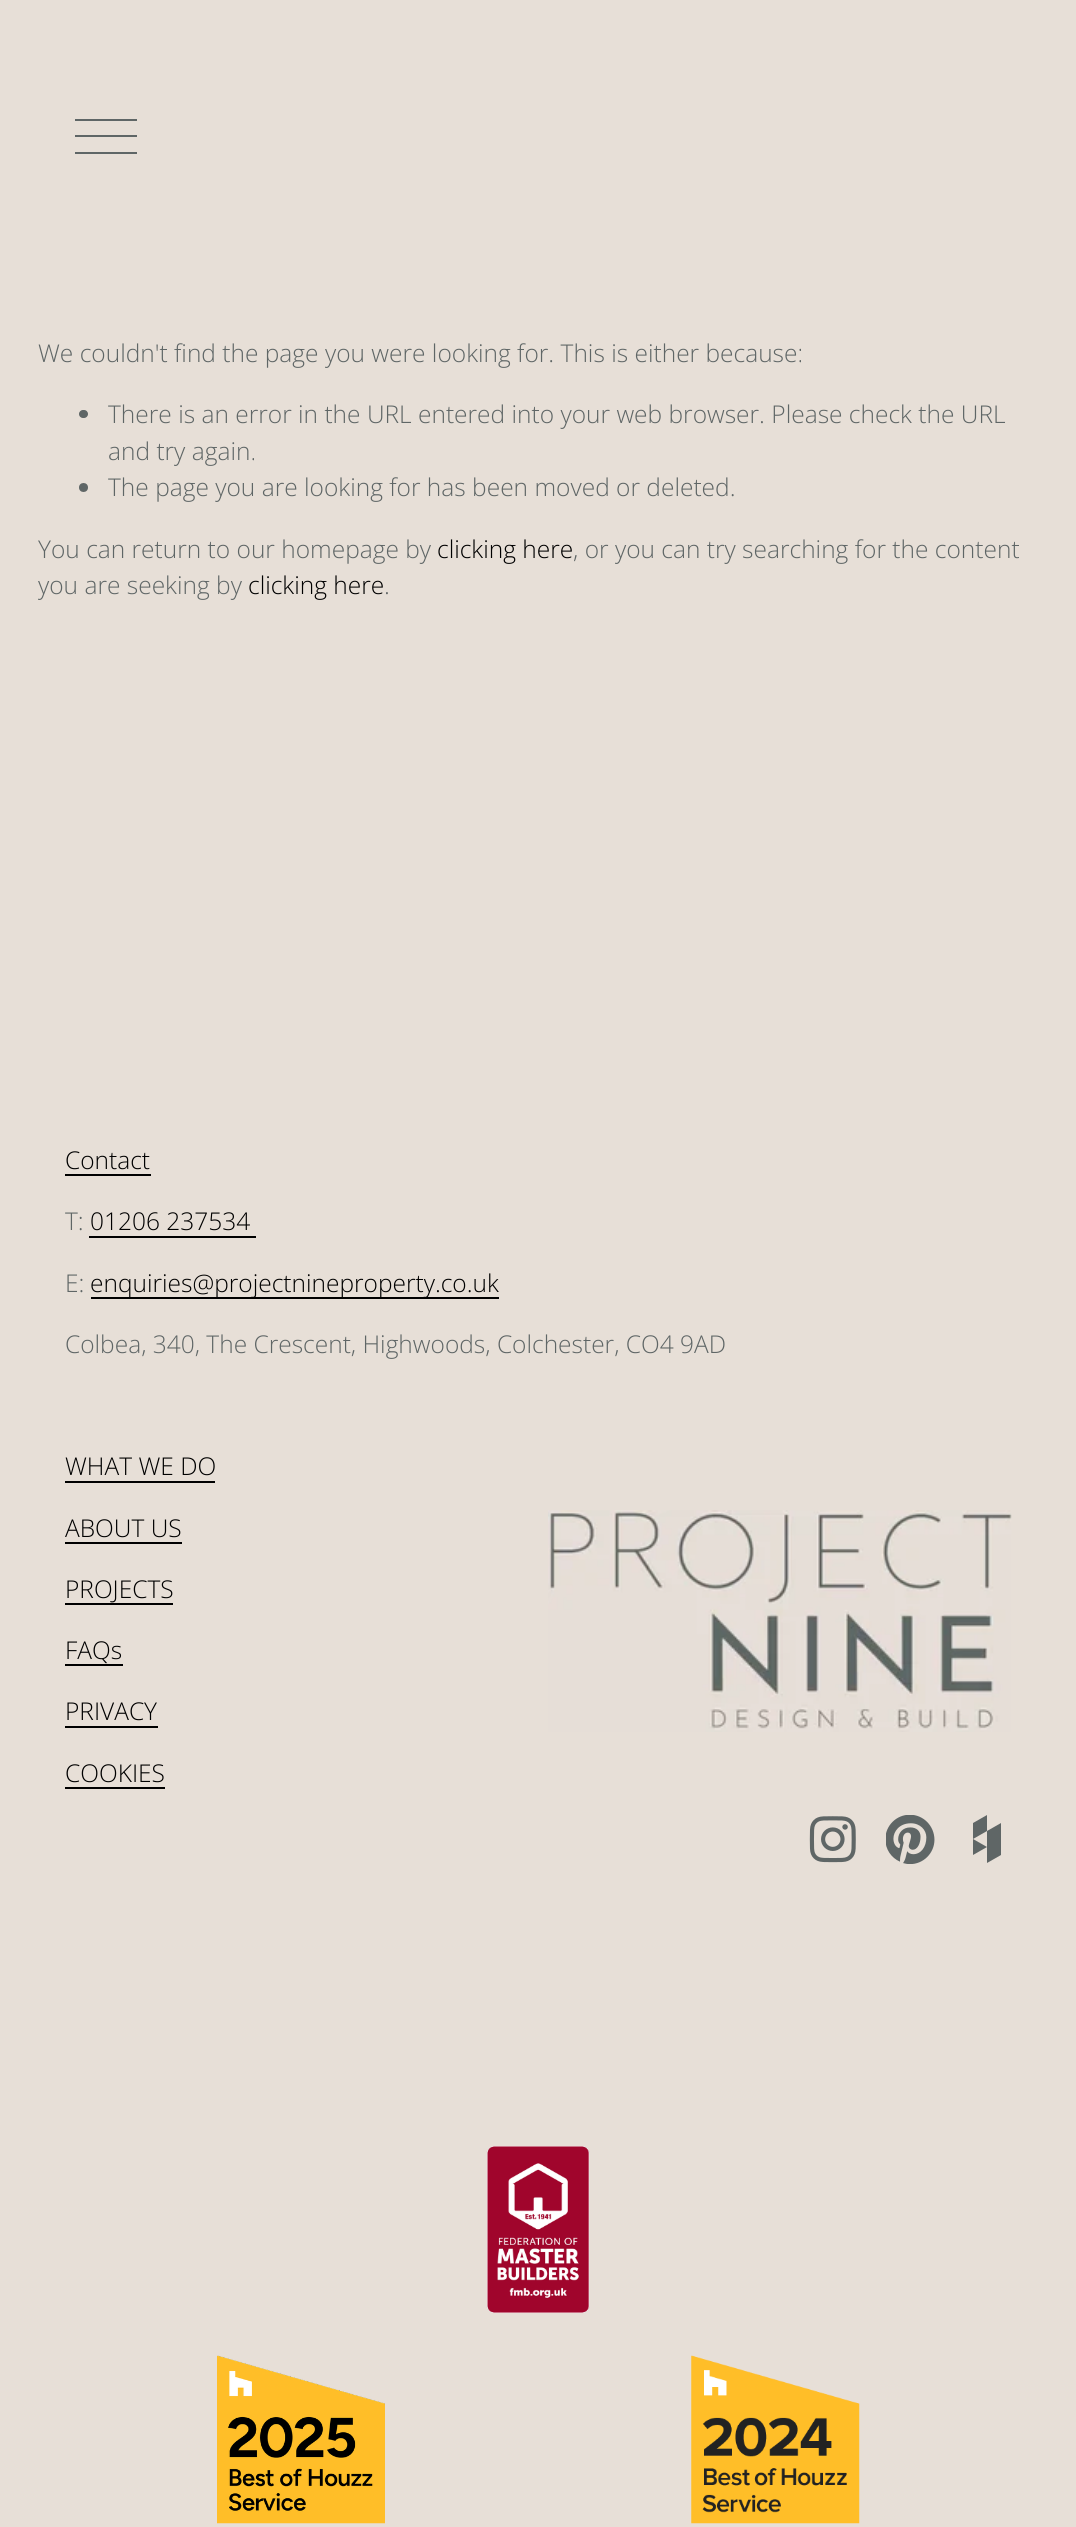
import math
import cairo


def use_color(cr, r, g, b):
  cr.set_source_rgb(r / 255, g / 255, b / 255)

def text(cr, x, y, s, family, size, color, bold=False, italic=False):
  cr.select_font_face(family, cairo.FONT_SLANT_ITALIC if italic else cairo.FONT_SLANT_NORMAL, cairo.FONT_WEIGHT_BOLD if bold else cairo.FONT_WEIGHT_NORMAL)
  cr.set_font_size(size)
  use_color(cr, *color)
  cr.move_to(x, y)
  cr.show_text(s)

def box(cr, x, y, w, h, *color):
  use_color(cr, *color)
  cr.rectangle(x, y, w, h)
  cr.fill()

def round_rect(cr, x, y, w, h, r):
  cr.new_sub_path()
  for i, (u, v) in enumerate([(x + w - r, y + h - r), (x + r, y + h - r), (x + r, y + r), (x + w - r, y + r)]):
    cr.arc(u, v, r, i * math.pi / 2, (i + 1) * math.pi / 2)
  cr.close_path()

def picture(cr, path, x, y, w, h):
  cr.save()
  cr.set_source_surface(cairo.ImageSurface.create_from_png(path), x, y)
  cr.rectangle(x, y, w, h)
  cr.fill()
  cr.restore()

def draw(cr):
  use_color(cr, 231, 223, 215)
  cr.paint()
  box(cr, 75, 119, 62, 2, 95, 102, 102)
  box(cr, 75, 135, 62, 2, 95, 102, 102)
  box(cr, 75, 152, 62, 2, 95, 102, 102)
  round_rect(cr, 79, 410, 9, 8, 4)
  cr.fill()
  cr.arc(83.5, 487.5, 4.5, 0, 2 * math.pi)
  cr.fill()
  box(cr, 65, 1174, 86, 2, 0, 0, 0)
  box(cr, 89, 1236, 167, 2, 0, 0, 0)
  box(cr, 91, 1297, 408, 2, 0, 0, 0)
  box(cr, 65, 1481, 150, 2, 0, 0, 0)
  box(cr, 65, 1542, 117, 2, 0, 0, 0)
  box(cr, 65, 1603, 108, 2, 0, 0, 0)
  box(cr, 65, 1664, 58, 2, 0, 0, 0)
  picture(cr, "img_01.png", 548, 1510, 464, 222)
  box(cr, 65, 1726, 93, 2, 0, 0, 0)
  box(cr, 65, 1787, 100, 2, 0, 0, 0)
  picture(cr, "img_02.png", 809, 1816, 47, 47)
  picture(cr, "img_03.png", 886, 1815, 49, 49)
  use_color(cr, 95, 102, 102)
  cr.new_path()
  cr.move_to(973, 1855)
  cr.line_to(987, 1847)
  cr.line_to(973, 1839)
  cr.line_to(987, 1831)
  cr.line_to(987, 1863)
  cr.line_to(1001, 1855)
  cr.line_to(1001, 1823)
  cr.line_to(987, 1831)
  cr.line_to(987, 1815)
  cr.line_to(973, 1823)
  cr.close_path()
  cr.fill()
  picture(cr, "img_04.png", 486, 2146, 104, 167)
  picture(cr, "img_05.png", 217, 2355, 168, 169)
  picture(cr, "img_06.png", 691, 2355, 169, 169)
  text(cr, 38, 362, "We couldn't find the page you were looking for. This is either because:", "Open Sans Light", 24.5, (95, 102, 102))
  text(cr, 108, 423, "There is an error in the URL entered into your web browser. Please check the URL", "Open Sans Light", 24.5, (95, 102, 102))
  text(cr, 108, 460, "and try again.", "Open Sans Light", 24.5, (95, 102, 102))
  text(cr, 108, 496, "The page you are looking for has been moved or deleted.", "Open Sans Light", 24.5, (95, 102, 102))
  text(cr, 38, 558, "You can return to our homepage by", "Open Sans Light", 24.5, (95, 102, 102))
  text(cr, 437, 558, "clicking here", "Open Sans Light", 24.5, (0, 0, 0))
  text(cr, 573, 558, ", or you can try searching for the content", "Open Sans Light", 24.5, (95, 102, 102))
  text(cr, 38, 594, "you are seeking by", "Open Sans Light", 24.5, (95, 102, 102))
  text(cr, 248, 594, "clicking here", "Open Sans Light", 24.5, (0, 0, 0))
  text(cr, 384, 594, ".", "Open Sans Light", 24.5, (95, 102, 102))
  text(cr, 65, 1169, "Contact", "Open Sans Light", 24.5, (0, 0, 0))
  text(cr, 65, 1230, "T:", "Open Sans Light", 24.5, (95, 102, 102))
  text(cr, 90, 1230, "01206 237534", "Open Sans Light", 24.5, (0, 0, 0))
  text(cr, 65, 1292, "E:", "Open Sans Light", 24.5, (95, 102, 102))
  text(cr, 90, 1292, "enquiries@projectnineproperty.co.uk", "Open Sans Light", 24.5, (0, 0, 0))
  text(cr, 65, 1353, "Colbea, 340, The Crescent, Highwoods, Colchester, CO4 9AD", "Open Sans Light", 24.5, (95, 102, 102))
  text(cr, 65, 1475, "WHAT WE DO", "Open Sans Light", 24.5, (0, 0, 0))
  text(cr, 65, 1537, "ABOUT US", "Open Sans Light", 24.5, (0, 0, 0))
  text(cr, 65, 1598, "PROJECTS", "Open Sans Light", 24.5, (0, 0, 0))
  text(cr, 65, 1659, "FAQs", "Open Sans Light", 24.5, (0, 0, 0))
  text(cr, 65, 1720, "PRIVACY", "Open Sans Light", 24.5, (0, 0, 0))
  text(cr, 65, 1782, "COOKIES", "Open Sans Light", 24.5, (0, 0, 0))


surface = cairo.ImageSurface(cairo.FORMAT_RGB24, 1076, 2527)
cr = cairo.Context(surface)
options = cairo.FontOptions()
options.set_hint_metrics(cairo.HINT_METRICS_OFF)
options.set_hint_style(cairo.HINT_STYLE_NONE)
cr.set_font_options(options)
cr.set_miter_limit(4)
draw(cr)
surface.write_to_png("out.png")
